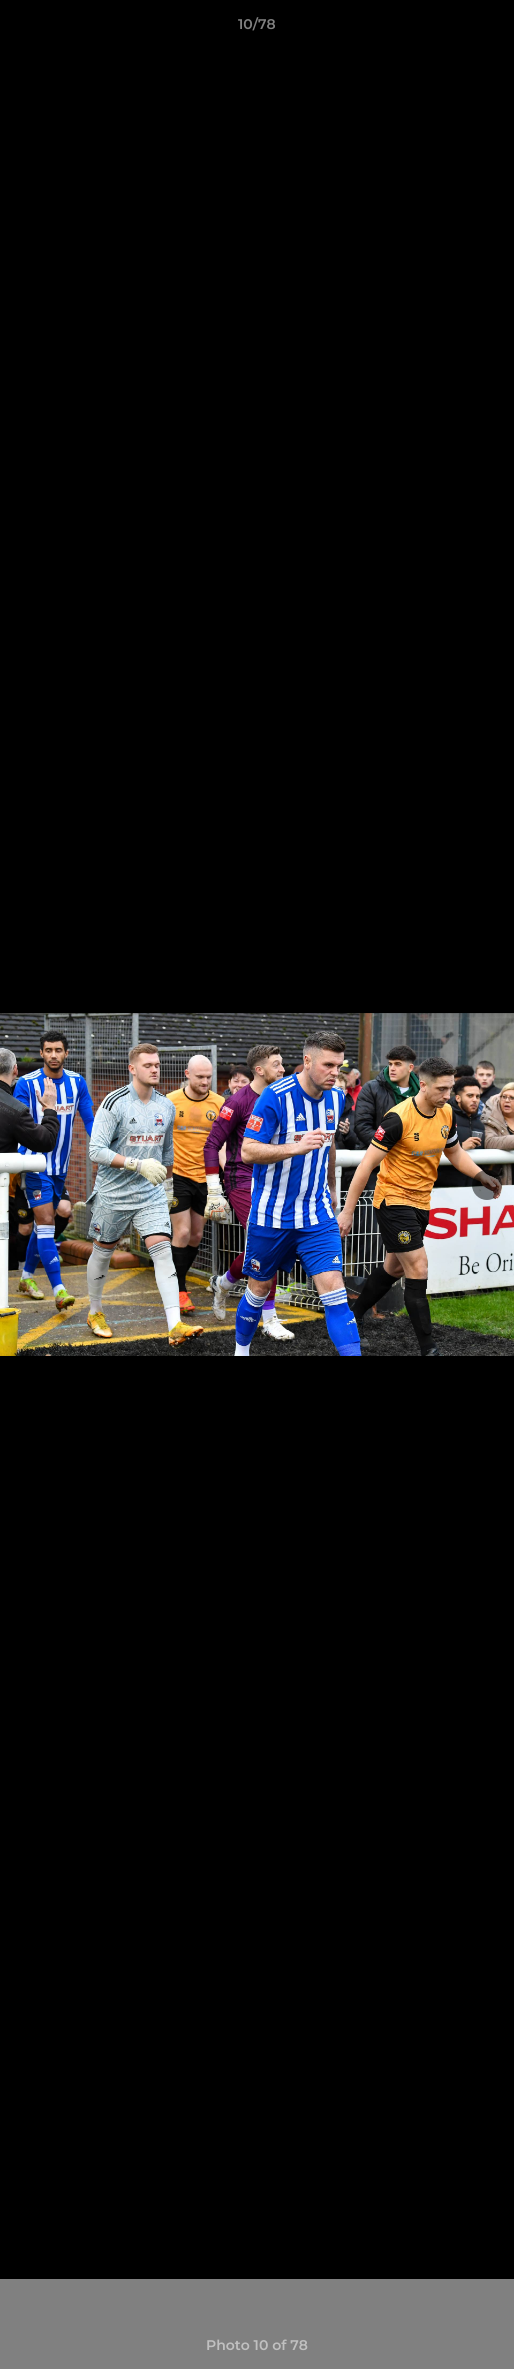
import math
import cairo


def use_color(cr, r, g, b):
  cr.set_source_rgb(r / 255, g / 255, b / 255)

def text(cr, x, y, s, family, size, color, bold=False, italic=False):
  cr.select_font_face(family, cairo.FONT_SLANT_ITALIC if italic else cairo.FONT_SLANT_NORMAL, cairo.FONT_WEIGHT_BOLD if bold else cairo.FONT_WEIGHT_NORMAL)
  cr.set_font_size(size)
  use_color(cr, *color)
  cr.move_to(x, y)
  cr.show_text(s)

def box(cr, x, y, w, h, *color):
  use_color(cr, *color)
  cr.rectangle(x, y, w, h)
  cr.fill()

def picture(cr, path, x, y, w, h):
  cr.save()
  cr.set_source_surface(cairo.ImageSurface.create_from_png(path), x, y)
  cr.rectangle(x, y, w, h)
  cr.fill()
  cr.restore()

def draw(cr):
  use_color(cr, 0, 0, 0)
  cr.paint()
  box(cr, 0, 2279, 514, 90, 128, 128, 128)
  picture(cr, "img_01.png", 0, 1013, 514, 343)
  cr.set_source_rgba(0, 0, 0, 0.5)
  cr.arc(27, 1185, 15, 0, 2 * math.pi)
  cr.fill()
  cr.arc(487, 1185, 15, 0, 2 * math.pi)
  cr.fill()
  text(cr, 238, 29, "10/78", "Montserrat SemiBold", 14, (128, 128, 128))
  text(cr, 206, 2350, "Photo 10 of 78", "Montserrat SemiBold", 14, (192, 192, 192))


surface = cairo.ImageSurface(cairo.FORMAT_RGB24, 514, 2369)
cr = cairo.Context(surface)
options = cairo.FontOptions()
options.set_hint_metrics(cairo.HINT_METRICS_OFF)
options.set_hint_style(cairo.HINT_STYLE_NONE)
cr.set_font_options(options)
cr.set_miter_limit(4)
draw(cr)
surface.write_to_png("out.png")
